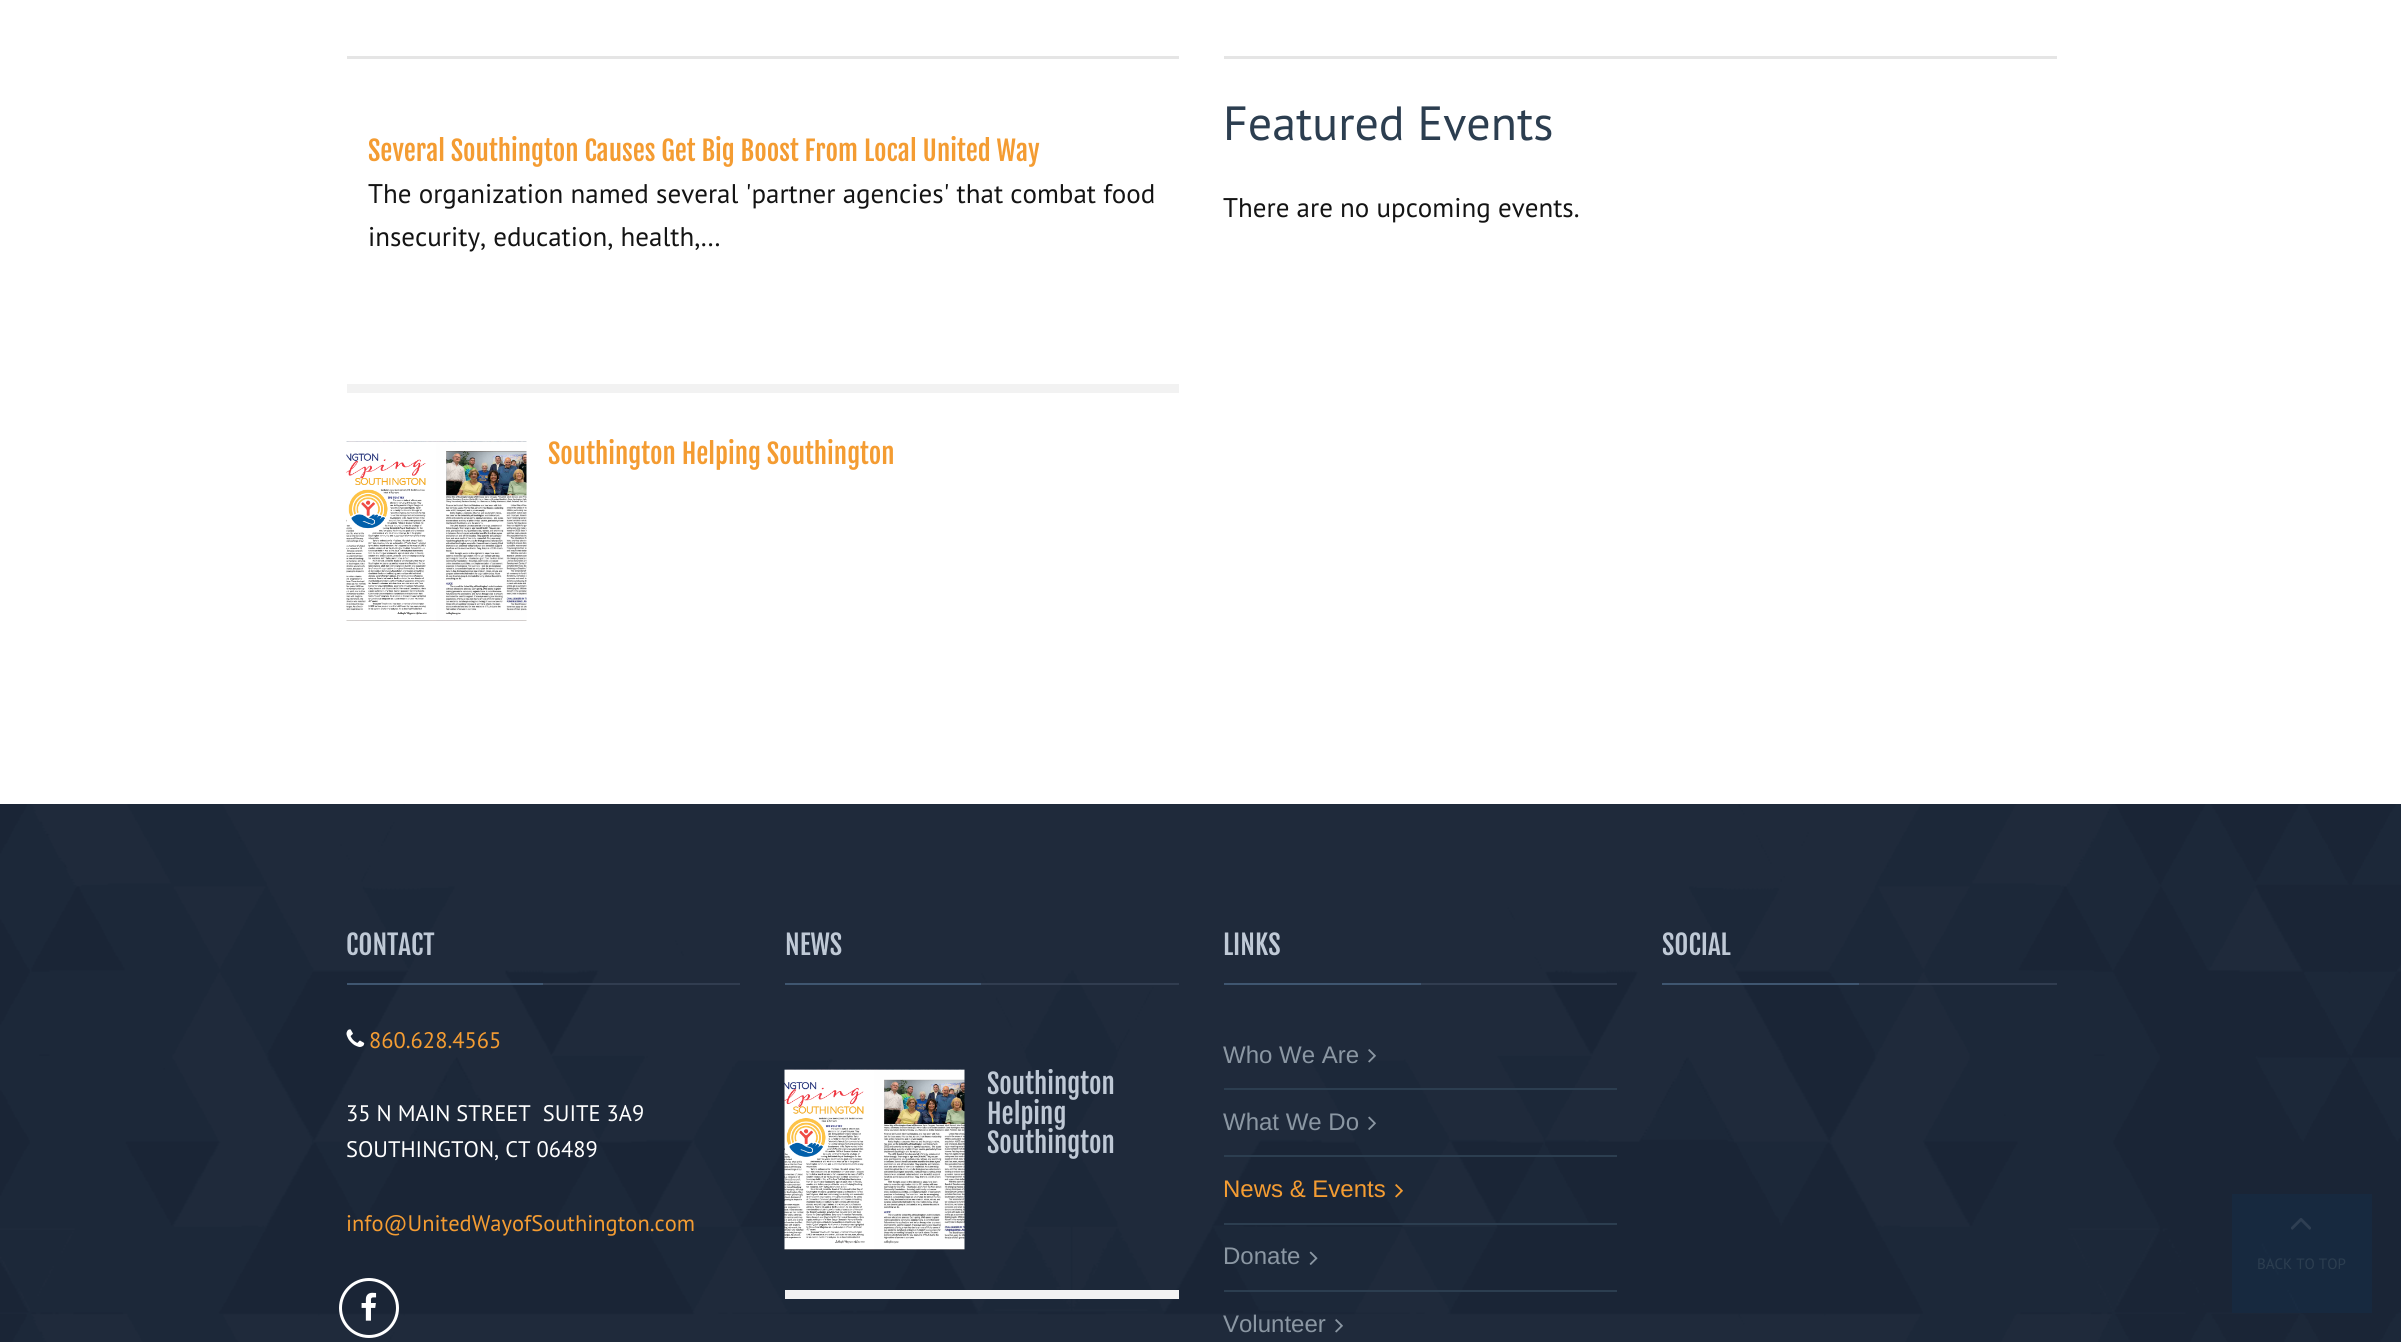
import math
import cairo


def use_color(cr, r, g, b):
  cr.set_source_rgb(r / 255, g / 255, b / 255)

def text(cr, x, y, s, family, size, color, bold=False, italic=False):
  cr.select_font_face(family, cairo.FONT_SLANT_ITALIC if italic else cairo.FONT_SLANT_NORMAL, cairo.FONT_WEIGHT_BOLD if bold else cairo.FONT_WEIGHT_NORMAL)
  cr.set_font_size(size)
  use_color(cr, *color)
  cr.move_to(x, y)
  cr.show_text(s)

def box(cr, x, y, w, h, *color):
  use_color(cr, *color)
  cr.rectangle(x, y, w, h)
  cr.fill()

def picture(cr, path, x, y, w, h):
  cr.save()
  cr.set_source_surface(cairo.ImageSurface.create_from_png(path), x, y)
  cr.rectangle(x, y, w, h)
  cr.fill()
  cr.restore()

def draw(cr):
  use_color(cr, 255, 255, 255)
  cr.paint()
  box(cr, 347, 56, 832, 3, 229, 229, 229)
  box(cr, 347, 384, 832, 9, 242, 242, 242)
  picture(cr, "img_01.png", 346, 441, 181, 180)
  box(cr, 1224, 56, 833, 3, 229, 229, 229)
  picture(cr, "img_02.png", 0, 804, 2401, 538)
  box(cr, 543, 983, 197, 2, 49, 61, 80)
  box(cr, 347, 983, 196, 2, 63, 86, 112)
  picture(cr, "img_03.png", 346, 1029, 19, 18)
  cr.arc(369, 1308, 28.5, 0, 2 * math.pi)
  use_color(cr, 255, 255, 255)
  cr.set_line_width(3)
  cr.stroke()
  picture(cr, "img_04.png", 361, 1292, 16, 29)
  box(cr, 981, 983, 198, 2, 49, 61, 80)
  box(cr, 785, 983, 196, 2, 63, 86, 112)
  picture(cr, "img_05.png", 784, 1069, 181, 181)
  box(cr, 785, 1290, 394, 9, 242, 242, 242)
  box(cr, 1421, 983, 196, 2, 49, 61, 80)
  box(cr, 1224, 983, 197, 2, 63, 86, 112)
  box(cr, 1224, 1088, 393, 2, 44, 62, 80)
  picture(cr, "img_06.png", 1368, 1049, 8, 14)
  box(cr, 1224, 1155, 393, 2, 44, 62, 80)
  picture(cr, "img_07.png", 1368, 1116, 8, 14)
  box(cr, 1224, 1223, 393, 2, 44, 62, 80)
  picture(cr, "img_08.png", 1395, 1184, 8, 14)
  box(cr, 1224, 1290, 393, 2, 44, 62, 80)
  picture(cr, "img_09.png", 1309, 1251, 9, 14)
  picture(cr, "img_10.png", 1335, 1319, 8, 14)
  box(cr, 1859, 983, 198, 2, 49, 61, 80)
  box(cr, 1662, 983, 197, 2, 63, 86, 112)
  cr.set_source_rgba(0, 0.318, 0.569, 0.1)
  cr.rectangle(2233, 1195, 138, 117)
  cr.fill_preserve()
  use_color(cr, 23, 41, 63)
  cr.set_line_width(2)
  cr.stroke()
  picture(cr, "img_11.png", 2291, 1218, 20, 12)
  text(cr, 368, 161, "Several Southington Causes Get Big Boost From Local United Way", "Fjalla One", 27, (244, 156, 50))
  text(cr, 368, 203, "The organization named several 'partner agencies' that combat food", "PT Sans", 27, (20, 20, 20))
  text(cr, 368, 246, "insecurity, education, health,…", "PT Sans", 27, (20, 20, 20))
  text(cr, 548, 464, "Southington Helping Southington", "Fjalla One", 27, (244, 156, 50))
  text(cr, 1223, 140, "Featured Events", "PT Sans", 48, (44, 62, 80))
  text(cr, 1223, 217, "There are no upcoming events.", "PT Sans", 27, (20, 20, 20))
  text(cr, 346, 955, "CONTACT", "Fjalla One", 27, (191, 201, 214))
  text(cr, 369, 1048, "860.628.4565", "PT Sans", 22.5, (244, 156, 50))
  text(cr, 346, 1121, "35 N MAIN STREET  SUITE 3A9", "PT Sans", 22.5, (255, 255, 255))
  text(cr, 346, 1157, "SOUTHINGTON, CT 06489", "PT Sans", 22.5, (255, 255, 255))
  text(cr, 346, 1231, "info@UnitedWayofSouthington.com", "PT Sans", 22.5, (244, 156, 50))
  text(cr, 785, 955, "NEWS", "Fjalla One", 27, (191, 201, 214))
  text(cr, 987, 1094, "Southington", "Fjalla One", 27, (191, 201, 214))
  text(cr, 987, 1124, "Helping", "Fjalla One", 27, (191, 201, 214))
  text(cr, 987, 1153, "Southington", "Fjalla One", 27, (191, 201, 214))
  text(cr, 1223, 955, "LINKS", "Fjalla One", 27, (191, 201, 214))
  text(cr, 1223, 1063, "Who We Are", "Liberation Sans", 24, (139, 151, 163))
  text(cr, 1223, 1130, "What We Do", "Liberation Sans", 24, (139, 151, 163))
  text(cr, 1223, 1197, "News & Events", "Liberation Sans", 24, (244, 156, 50))
  text(cr, 1223, 1264, "Donate", "Liberation Sans", 24, (139, 151, 163))
  text(cr, 1223, 1332, "Volunteer", "Liberation Sans", 24, (139, 151, 163))
  text(cr, 1662, 955, "SOCIAL", "Fjalla One", 27, (191, 201, 214))
  text(cr, 2257, 1269, "BACK TO TOP", "PT Sans", 15, (44, 62, 80))


surface = cairo.ImageSurface(cairo.FORMAT_RGB24, 2401, 1342)
cr = cairo.Context(surface)
options = cairo.FontOptions()
options.set_hint_metrics(cairo.HINT_METRICS_OFF)
options.set_hint_style(cairo.HINT_STYLE_NONE)
cr.set_font_options(options)
cr.set_miter_limit(4)
draw(cr)
surface.write_to_png("out.png")
